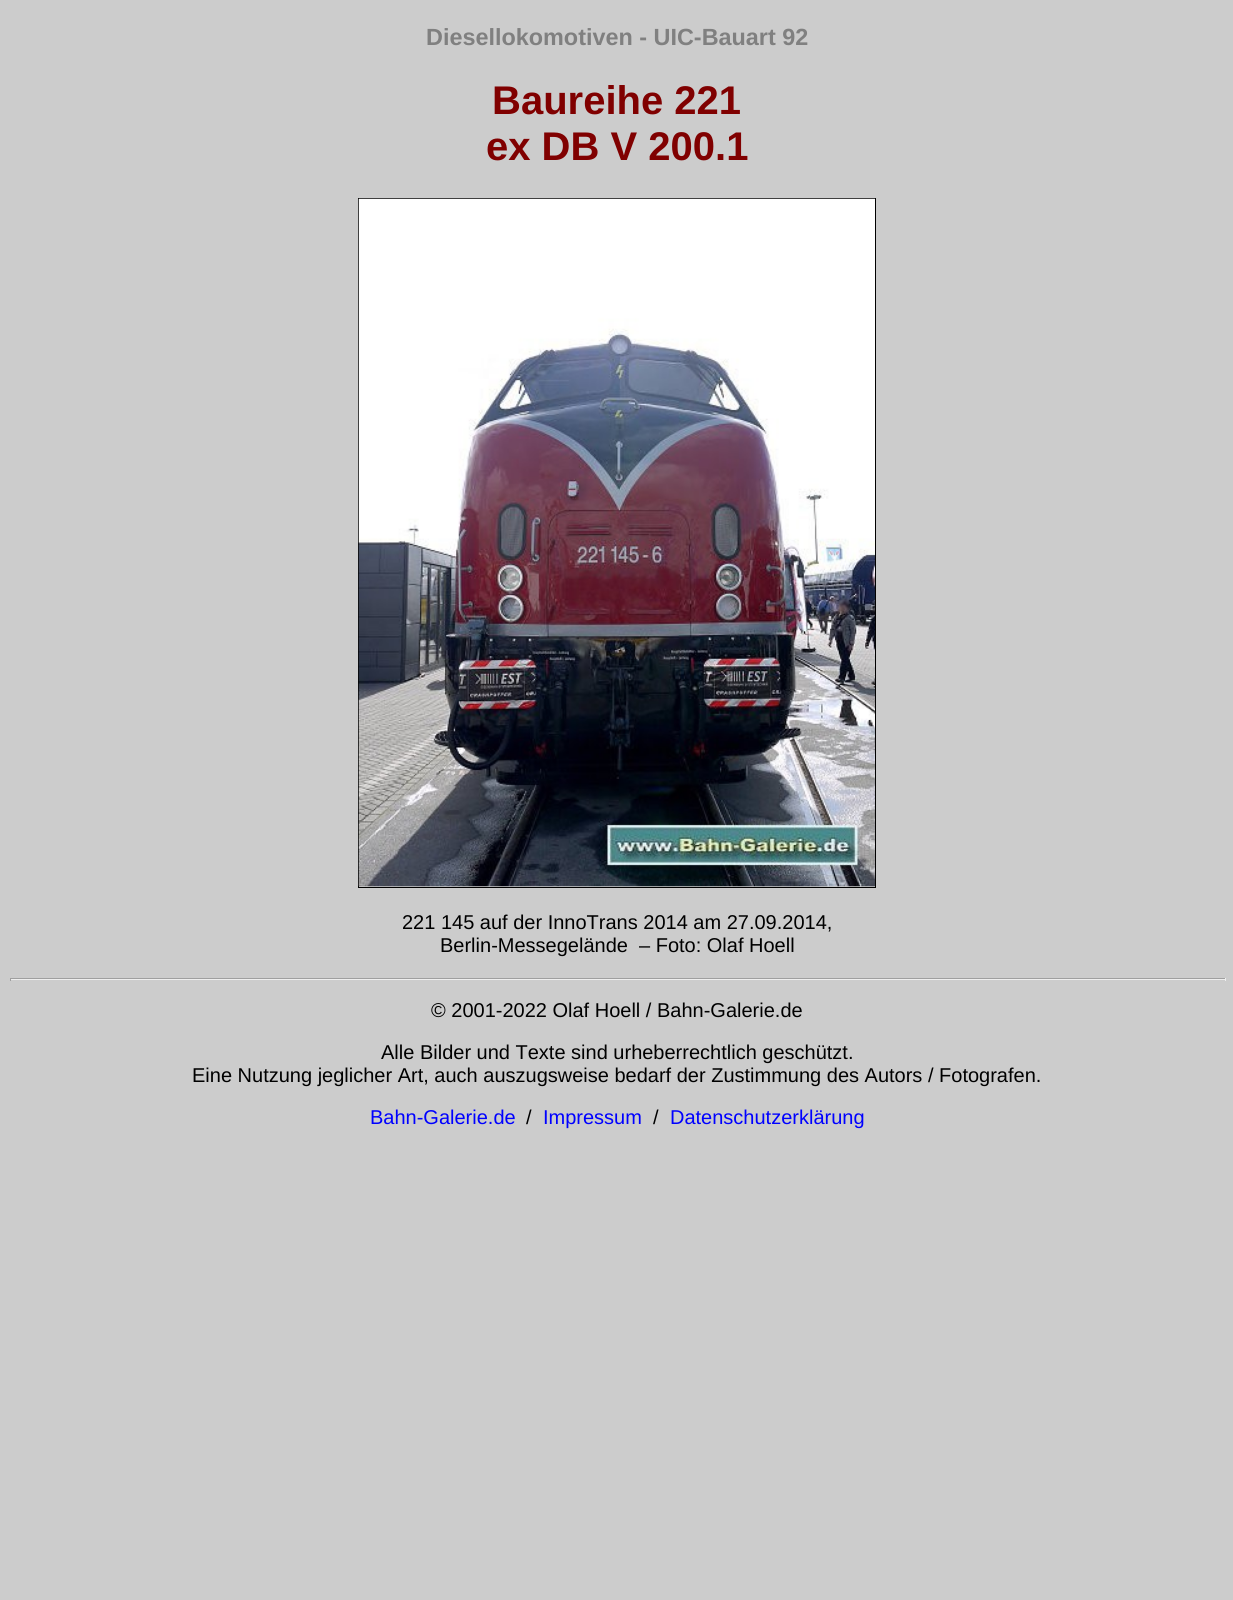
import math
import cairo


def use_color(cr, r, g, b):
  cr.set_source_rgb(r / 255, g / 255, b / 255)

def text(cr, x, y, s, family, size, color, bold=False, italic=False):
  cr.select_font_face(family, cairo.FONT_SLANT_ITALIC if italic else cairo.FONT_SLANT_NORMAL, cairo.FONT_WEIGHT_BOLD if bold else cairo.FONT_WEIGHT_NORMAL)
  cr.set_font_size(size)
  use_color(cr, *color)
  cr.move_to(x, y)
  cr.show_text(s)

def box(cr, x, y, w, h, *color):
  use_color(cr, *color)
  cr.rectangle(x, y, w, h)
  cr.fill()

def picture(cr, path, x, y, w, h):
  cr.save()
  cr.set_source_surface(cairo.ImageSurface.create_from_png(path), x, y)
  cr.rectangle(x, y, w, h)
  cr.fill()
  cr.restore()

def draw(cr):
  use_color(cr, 204, 204, 204)
  cr.paint()
  cr.rectangle(358.5, 198.5, 517, 689)
  use_color(cr, 0, 0, 0)
  cr.set_line_width(1)
  cr.stroke()
  picture(cr, "img_01.png", 358, 198, 517, 689)
  box(cr, 10, 978, 1216, 1, 159, 159, 159)
  box(cr, 1225, 978, 1, 3, 238, 238, 238)
  box(cr, 10, 979, 1216, 1, 238, 238, 238)
  box(cr, 10, 978, 1, 3, 159, 159, 159)
  text(cr, 426, 45, "Diesellokomotiven - UIC-Bauart 92", "Liberation Sans", 23.4, (128, 128, 128), bold=True)
  text(cr, 492, 114, "Baureihe 221", "Liberation Sans", 40, (128, 0, 0), bold=True)
  text(cr, 486, 160, "ex DB V 200.1", "Liberation Sans", 40, (128, 0, 0), bold=True)
  text(cr, 402, 929, "221 145 auf der InnoTrans 2014 am 27.09.2014,", "Liberation Sans", 20, (0, 0, 0))
  text(cr, 440, 952, "Berlin-Messegelände  – Foto: Olaf Hoell", "Liberation Sans", 20, (0, 0, 0))
  text(cr, 431, 1017, "© 2001-2022 Olaf Hoell / Bahn-Galerie.de", "Liberation Sans", 20, (0, 0, 0))
  text(cr, 381, 1059, "Alle Bilder und Texte sind urheberrechtlich geschützt.", "Liberation Sans", 20, (0, 0, 0))
  text(cr, 192, 1082, "Eine Nutzung jeglicher Art, auch auszugsweise bedarf der Zustimmung des Autors / Fotografen.", "Liberation Sans", 20, (0, 0, 0))
  text(cr, 370, 1124, "Bahn-Galerie.de", "Liberation Sans", 20, (0, 0, 255))
  text(cr, 526, 1124, "/", "Liberation Sans", 20, (0, 0, 0))
  text(cr, 543, 1124, "Impressum", "Liberation Sans", 20, (0, 0, 255))
  text(cr, 653, 1124, "/", "Liberation Sans", 20, (0, 0, 0))
  text(cr, 670, 1124, "Datenschutzerklärung", "Liberation Sans", 20, (0, 0, 255))


surface = cairo.ImageSurface(cairo.FORMAT_RGB24, 1233, 1600)
cr = cairo.Context(surface)
options = cairo.FontOptions()
options.set_hint_metrics(cairo.HINT_METRICS_OFF)
options.set_hint_style(cairo.HINT_STYLE_NONE)
cr.set_font_options(options)
cr.set_miter_limit(4)
draw(cr)
surface.write_to_png("out.png")
